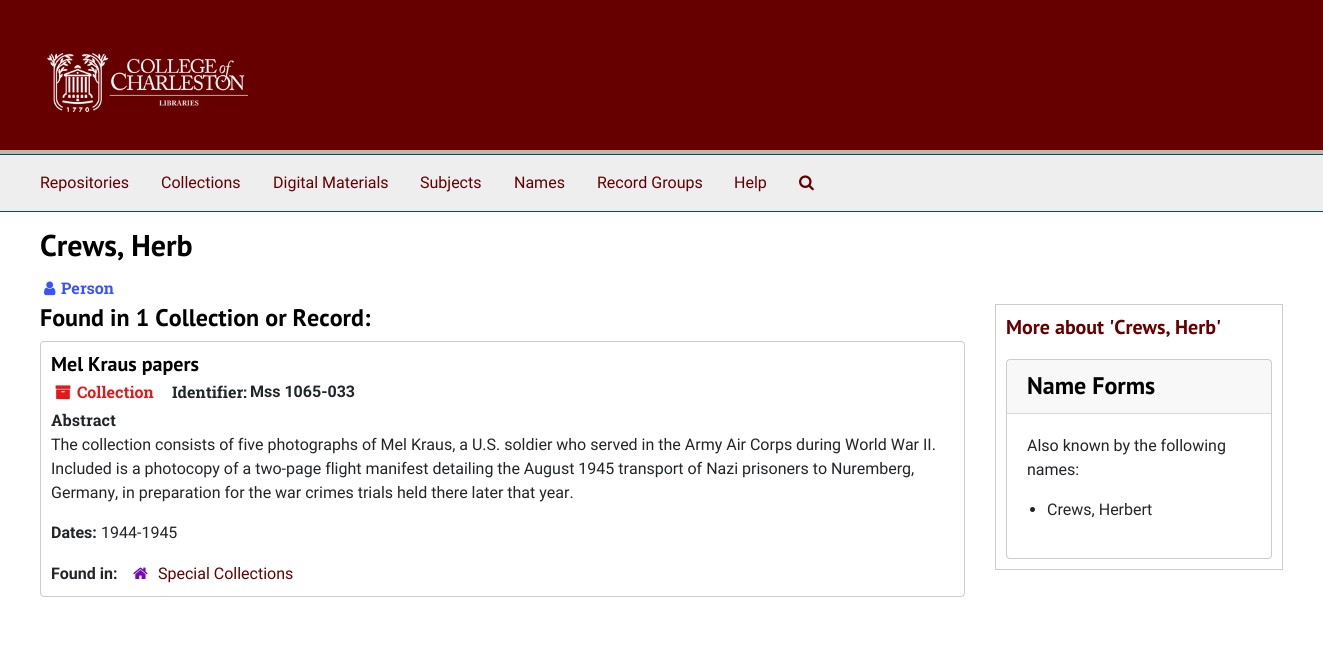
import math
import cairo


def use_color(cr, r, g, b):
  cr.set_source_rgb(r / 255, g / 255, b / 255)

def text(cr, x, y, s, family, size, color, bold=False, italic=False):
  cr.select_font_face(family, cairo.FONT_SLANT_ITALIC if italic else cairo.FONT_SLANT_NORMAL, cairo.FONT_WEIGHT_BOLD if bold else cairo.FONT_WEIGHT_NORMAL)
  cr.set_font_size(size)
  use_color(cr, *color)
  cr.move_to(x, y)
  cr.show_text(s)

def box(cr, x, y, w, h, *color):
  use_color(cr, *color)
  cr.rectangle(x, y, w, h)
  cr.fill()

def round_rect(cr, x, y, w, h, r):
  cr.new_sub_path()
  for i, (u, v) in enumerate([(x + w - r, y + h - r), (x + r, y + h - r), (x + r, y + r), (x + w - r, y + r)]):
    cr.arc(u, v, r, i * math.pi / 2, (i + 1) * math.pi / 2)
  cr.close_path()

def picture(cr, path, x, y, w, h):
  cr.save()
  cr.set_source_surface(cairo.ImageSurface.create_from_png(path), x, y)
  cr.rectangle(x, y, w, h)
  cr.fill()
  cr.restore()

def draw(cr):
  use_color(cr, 255, 255, 255)
  cr.paint()
  box(cr, 0, 0, 1323, 150, 102, 0, 0)
  box(cr, 0, 150, 1323, 4, 190, 185, 166)
  picture(cr, "img_01.png", 47, 53, 201, 59)
  box(cr, 0, 155, 1323, 56, 238, 238, 238)
  box(cr, 0, 154, 1323, 1, 0, 79, 111)
  box(cr, 0, 211, 1323, 1, 0, 79, 111)
  picture(cr, "img_02.png", 799, 175, 15, 16)
  picture(cr, "img_03.png", 44, 281, 12, 15)
  round_rect(cr, 40.5, 341.5, 924, 255, 3.5)
  use_color(cr, 204, 204, 204)
  cr.set_line_width(1)
  cr.stroke()
  picture(cr, "img_04.png", 55, 385, 16, 15)
  picture(cr, "img_05.png", 133, 567, 15, 12)
  cr.rectangle(995.5, 304.5, 287, 265)
  cr.stroke()
  round_rect(cr, 1006.5, 359.5, 265, 199, 3.5)
  cr.stroke()
  cr.set_source_rgba(0, 0, 0, 0.03)
  cr.rectangle(1007, 360, 264, 53)
  cr.fill()
  box(cr, 1007, 413, 264, 1, 216, 216, 216)
  use_color(cr, 33, 37, 41)
  cr.arc(1032.5, 509.5, 2.5, 0, 2 * math.pi)
  cr.fill()
  text(cr, 40, 188, "Repositories", "Roboto", 16, (102, 0, 0))
  text(cr, 161, 188, "Collections", "Roboto", 16, (102, 0, 0))
  text(cr, 273, 188, "Digital Materials", "Roboto", 16, (102, 0, 0))
  text(cr, 420, 188, "Subjects", "Roboto", 16, (102, 0, 0))
  text(cr, 514, 188, "Names", "Roboto", 16, (102, 0, 0))
  text(cr, 597, 188, "Record Groups", "Roboto", 16, (102, 0, 0))
  text(cr, 734, 188, "Help", "Roboto", 16, (102, 0, 0))
  text(cr, 40, 256, "Crews, Herb", "PT Sans", 30, (0, 0, 0), bold=True)
  text(cr, 61, 294, "Person", "Roboto Slab", 16, (59, 82, 255), bold=True)
  text(cr, 40, 326, "Found in 1 Collection or Record:", "PT Sans", 24, (0, 0, 0), bold=True)
  text(cr, 51, 371, "Mel Kraus papers", "PT Sans", 20, (0, 0, 0), bold=True)
  text(cr, 77, 398, "Collection", "Roboto Slab", 16, (224, 25, 25), bold=True)
  text(cr, 172, 398, "Identifier:", "Roboto Slab", 16, (33, 37, 41), bold=True)
  text(cr, 250, 397, "Mss 1065-033", "Roboto", 16, (33, 37, 41), bold=True)
  text(cr, 51, 426, "Abstract", "Roboto Slab", 16, (33, 37, 41), bold=True)
  text(cr, 51, 450, "The collection consists of five photographs of Mel Kraus, a U.S. soldier who served in the Army Air Corps during World War II.", "Roboto", 16, (33, 37, 41))
  text(cr, 51, 474, "Included is a photocopy of a two-page flight manifest detailing the August 1945 transport of Nazi prisoners to Nuremberg,", "Roboto", 16, (33, 37, 41))
  text(cr, 51, 498, "Germany, in preparation for the war crimes trials held there later that year.", "Roboto", 16, (33, 37, 41))
  text(cr, 51, 538, "Dates:", "Roboto", 16, (33, 37, 41), bold=True)
  text(cr, 101, 538, "1944-1945", "Roboto", 16, (33, 37, 41))
  text(cr, 51, 579, "Found in:", "Roboto", 16, (33, 37, 41), bold=True)
  text(cr, 158, 579, "Special Collections", "Roboto", 16, (102, 0, 0))
  text(cr, 1006, 334, "More about 'Crews, Herb'", "PT Sans", 20, (102, 0, 0), bold=True)
  text(cr, 1027, 394, "Name Forms", "PT Sans", 24, (0, 0, 0), bold=True)
  text(cr, 1027, 451, "Also known by the following", "Roboto", 16, (33, 37, 41))
  text(cr, 1027, 475, "names:", "Roboto", 16, (33, 37, 41))
  text(cr, 1047, 515, "Crews, Herbert", "Roboto", 16, (33, 37, 41))


surface = cairo.ImageSurface(cairo.FORMAT_RGB24, 1323, 648)
cr = cairo.Context(surface)
options = cairo.FontOptions()
options.set_hint_metrics(cairo.HINT_METRICS_OFF)
options.set_hint_style(cairo.HINT_STYLE_NONE)
cr.set_font_options(options)
cr.set_miter_limit(4)
draw(cr)
surface.write_to_png("out.png")
